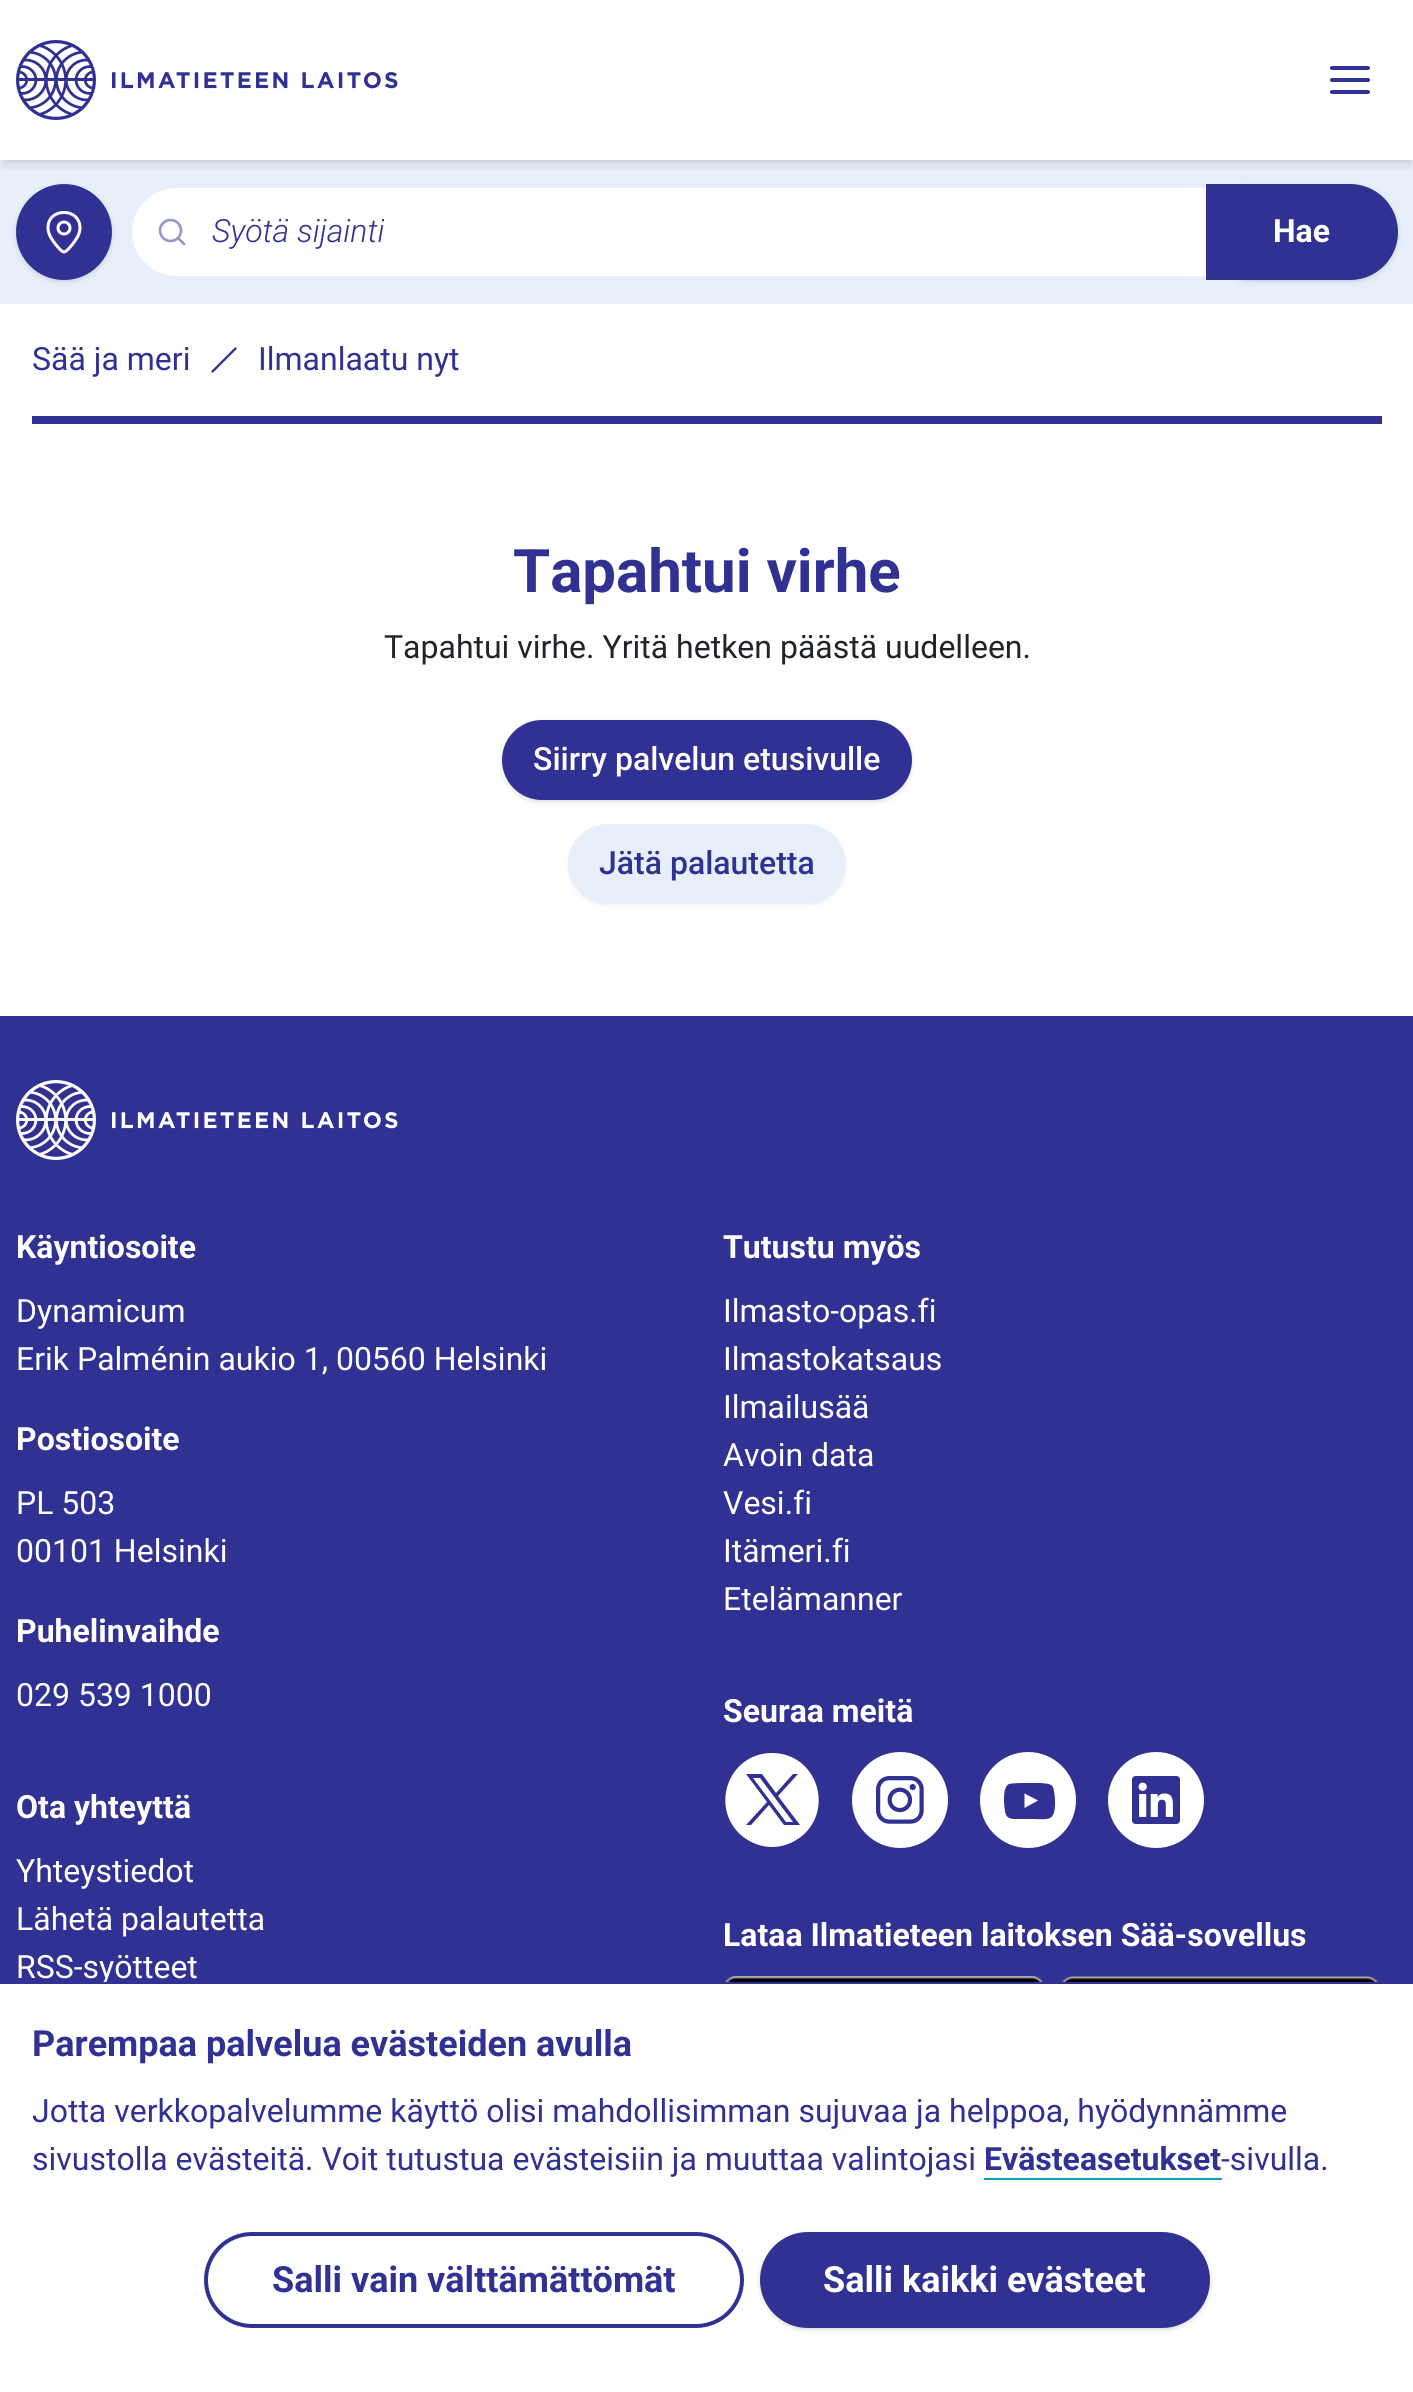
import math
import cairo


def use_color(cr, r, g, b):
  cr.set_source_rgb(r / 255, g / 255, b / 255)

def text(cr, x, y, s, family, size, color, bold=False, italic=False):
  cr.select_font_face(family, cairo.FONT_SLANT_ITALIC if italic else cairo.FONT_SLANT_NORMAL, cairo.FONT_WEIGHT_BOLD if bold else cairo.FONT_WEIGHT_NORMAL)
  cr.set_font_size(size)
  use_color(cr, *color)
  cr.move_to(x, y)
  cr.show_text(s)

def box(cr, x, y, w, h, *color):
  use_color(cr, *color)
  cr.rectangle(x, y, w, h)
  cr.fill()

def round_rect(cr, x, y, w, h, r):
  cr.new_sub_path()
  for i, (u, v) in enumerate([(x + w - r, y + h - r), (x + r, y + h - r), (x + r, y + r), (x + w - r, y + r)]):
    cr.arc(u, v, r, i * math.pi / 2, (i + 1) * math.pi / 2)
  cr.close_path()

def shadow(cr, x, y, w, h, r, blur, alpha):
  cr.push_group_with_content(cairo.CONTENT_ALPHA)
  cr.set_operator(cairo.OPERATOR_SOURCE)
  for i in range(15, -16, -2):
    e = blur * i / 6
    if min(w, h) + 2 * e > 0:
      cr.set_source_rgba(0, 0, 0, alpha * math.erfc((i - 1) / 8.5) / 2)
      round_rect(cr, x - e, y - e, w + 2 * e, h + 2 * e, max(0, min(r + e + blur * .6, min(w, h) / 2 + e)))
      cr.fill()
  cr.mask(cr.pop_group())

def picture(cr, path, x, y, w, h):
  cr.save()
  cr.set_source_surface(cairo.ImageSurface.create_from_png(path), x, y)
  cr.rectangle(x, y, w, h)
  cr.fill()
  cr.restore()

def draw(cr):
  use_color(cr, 255, 255, 255)
  cr.paint()
  box(cr, 0, 160, 1413, 144, 231, 240, 250)
  cr.save()
  cr.rectangle(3, 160, 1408, 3)
  cr.clip()
  use_color(cr, 0, 0, 0)
  shadow(cr, 4, 8, 1406, 152, 0, 4, 0.1)
  cr.restore()
  use_color(cr, 0, 0, 0)
  shadow(cr, 18, 188, 92, 92, 46, 2, 0.1)
  shadow(cr, 16, 186, 96, 96, 48, 3, 0.1)
  use_color(cr, 48, 49, 147)
  cr.arc(64, 232, 48, 0, 2 * math.pi)
  cr.fill()
  use_color(cr, 0, 0, 0)
  shadow(cr, 1208, 188, 188, 92, 46, 2, 0.1)
  shadow(cr, 1206, 186, 192, 96, 48, 3, 0.1)
  use_color(cr, 255, 255, 255)
  cr.new_path()
  cr.move_to(176, 188)
  cr.line_to(1206, 188)
  cr.line_to(1206, 276)
  cr.line_to(176, 276)
  cr.curve_to(151.5, 276, 132, 256.5, 132, 232)
  cr.curve_to(132, 207.5, 151.5, 188, 176, 188)
  cr.close_path()
  cr.fill()
  use_color(cr, 231, 240, 250)
  cr.set_fill_rule(cairo.FILL_RULE_EVEN_ODD)
  cr.new_path()
  cr.move_to(176, 184)
  cr.line_to(1206, 184)
  cr.line_to(1206, 280)
  cr.line_to(176, 280)
  cr.curve_to(149, 280, 128, 259, 128, 232)
  cr.curve_to(128, 205, 149, 184, 176, 184)
  cr.close_path()
  cr.move_to(176, 188)
  cr.line_to(1206, 188)
  cr.line_to(1206, 276)
  cr.line_to(176, 276)
  cr.curve_to(152, 276, 132, 256, 132, 232)
  cr.curve_to(132, 208, 152, 188, 176, 188)
  cr.close_path()
  cr.fill()
  use_color(cr, 48, 49, 147)
  cr.new_path()
  cr.move_to(1206, 184)
  cr.line_to(1350, 184)
  cr.curve_to(1376.5, 184, 1398, 205.5, 1398, 232)
  cr.curve_to(1398, 258.5, 1376.5, 280, 1350, 280)
  cr.line_to(1206, 280)
  cr.close_path()
  cr.fill()
  cr.save()
  cr.set_fill_rule(cairo.FILL_RULE_WINDING)
  cr.rectangle(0, 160, 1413, 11)
  cr.clip()
  use_color(cr, 0, 0, 0)
  shadow(cr, 2, 10, 1410, 156, 0, 6, 0.1)
  cr.restore()
  picture(cr, "img_01.png", 16, 40, 382, 80)
  cr.new_path()
  cr.move_to(1332, 80)
  cr.line_to(1368, 80)
  cr.move_to(1332, 92)
  cr.line_to(1368, 92)
  cr.move_to(1332, 68)
  cr.line_to(1368, 68)
  cr.set_line_width(4)
  cr.set_line_cap(cairo.LINE_CAP_ROUND)
  cr.set_line_join(cairo.LINE_JOIN_ROUND)
  cr.stroke()
  cr.new_path()
  cr.move_to(80, 228)
  cr.curve_to(80, 234.5, 75.5, 240.5, 71.5, 245.5)
  cr.curve_to(64, 254, 64, 254, 56.5, 245.5)
  cr.curve_to(52.5, 240.5, 48, 234.5, 48, 228)
  cr.curve_to(47.5, 207.5, 80, 207, 80, 228)
  use_color(cr, 255, 255, 255)
  cr.set_line_width(3)
  cr.stroke()
  cr.arc(64, 228, 6, 0, 2 * math.pi)
  cr.set_line_cap(cairo.LINE_CAP_BUTT)
  cr.set_line_join(cairo.LINE_JOIN_MITER)
  cr.stroke()
  cr.arc(170.5, 230.5, 10.5, 0, 2 * math.pi)
  use_color(cr, 152, 152, 201)
  cr.set_line_width(2.7)
  cr.stroke()
  cr.new_path()
  cr.move_to(184, 244)
  cr.line_to(178.5, 238.5)
  cr.set_line_cap(cairo.LINE_CAP_ROUND)
  cr.set_line_join(cairo.LINE_JOIN_ROUND)
  cr.stroke()
  box(cr, 32, 416, 1350, 8, 48, 49, 147)
  cr.new_path()
  cr.move_to(235.5, 348.5)
  cr.line_to(212.5, 371.5)
  cr.set_line_width(2.3)
  cr.stroke()
  use_color(cr, 0, 0, 0)
  shadow(cr, 504, 724, 406, 76, 38, 2, 0.1)
  shadow(cr, 502, 722, 410, 80, 40, 3, 0.1)
  use_color(cr, 48, 49, 147)
  round_rect(cr, 502, 720, 410, 80, 40)
  cr.fill()
  use_color(cr, 0, 0, 0)
  shadow(cr, 568, 826, 278, 80, 40, 2, 0.05)
  use_color(cr, 231, 240, 250)
  round_rect(cr, 568, 824, 278, 80, 40)
  cr.fill()
  box(cr, 0, 1016, 1413, 966, 48, 49, 147)
  picture(cr, "img_02.png", 16, 1080, 382, 80)
  use_color(cr, 255, 255, 255)
  cr.set_fill_rule(cairo.FILL_RULE_WINDING)
  cr.new_path()
  cr.move_to(772, 1847)
  cr.curve_to(761, 1847, 751, 1843, 742, 1836)
  cr.curve_to(709, 1808, 728, 1753, 772, 1753)
  cr.curve_to(816, 1753, 835, 1808, 802, 1836)
  cr.curve_to(793, 1843, 783, 1847, 772, 1847)
  cr.close_path()
  cr.fill()
  use_color(cr, 48, 49, 147)
  cr.new_path()
  cr.move_to(746, 1774)
  cr.line_to(767, 1802)
  cr.line_to(746, 1825)
  cr.line_to(751, 1825)
  cr.line_to(769, 1805)
  cr.line_to(784, 1825)
  cr.line_to(800, 1825)
  cr.line_to(778, 1796)
  cr.line_to(798, 1774)
  cr.line_to(793, 1774)
  cr.line_to(776, 1793)
  cr.line_to(762, 1774)
  cr.close_path()
  cr.move_to(753, 1778)
  cr.line_to(760, 1778)
  cr.line_to(793, 1822)
  cr.line_to(786, 1822)
  cr.close_path()
  cr.fill()
  picture(cr, "img_03.png", 852, 1752, 96, 96)
  use_color(cr, 255, 255, 255)
  cr.arc(1028, 1800, 48, 0, 2 * math.pi)
  cr.fill()
  use_color(cr, 48, 49, 147)
  cr.set_fill_rule(cairo.FILL_RULE_EVEN_ODD)
  cr.new_path()
  cr.move_to(1054, 1791)
  cr.curve_to(1053, 1783, 1048, 1784, 1041, 1783)
  cr.line_to(1025, 1783)
  cr.curve_to(1021, 1783, 1013, 1783, 1009, 1784)
  cr.curve_to(1002, 1787, 1004, 1806, 1005, 1811)
  cr.curve_to(1006, 1820, 1013, 1819, 1019, 1819)
  cr.line_to(1033, 1819)
  cr.curve_to(1037, 1819, 1046, 1820, 1050, 1818)
  cr.curve_to(1057, 1815, 1055, 1796, 1054, 1791)
  cr.close_path()
  cr.fill()
  use_color(cr, 255, 255, 255)
  cr.set_fill_rule(cairo.FILL_RULE_WINDING)
  cr.new_path()
  cr.move_to(1024.5, 1808)
  cr.line_to(1024.5, 1793.5)
  cr.line_to(1038, 1800.5)
  cr.close_path()
  cr.fill()
  picture(cr, "img_04.png", 1108, 1752, 96, 96)
  picture(cr, "img_05.png", 725, 1976, 318, 6)
  picture(cr, "img_06.png", 1061, 1976, 318, 6)
  box(cr, 984, 2178, 238, 2, 2, 163, 183)
  round_rect(cr, 206, 2234, 536, 92, 46)
  use_color(cr, 48, 49, 147)
  cr.set_line_width(4)
  cr.set_line_cap(cairo.LINE_CAP_BUTT)
  cr.set_line_join(cairo.LINE_JOIN_MITER)
  cr.stroke()
  use_color(cr, 0, 0, 0)
  shadow(cr, 762, 2236, 446, 92, 46, 2, 0.1)
  shadow(cr, 760, 2234, 450, 96, 48, 3, 0.1)
  use_color(cr, 48, 49, 147)
  round_rect(cr, 760, 2232, 450, 96, 48)
  cr.fill()
  text(cr, 212, 242, "Syötä sijainti", "Roboto Light", 32, (48, 49, 147), italic=True)
  text(cr, 1273, 242, "Hae", "Roboto", 32, (255, 255, 255), bold=True)
  text(cr, 32, 370, "Sää ja meri", "Roboto", 32, (48, 49, 147))
  text(cr, 258, 370, "Ilmanlaatu nyt", "Roboto", 32, (48, 49, 147))
  text(cr, 513, 592, "Tapahtui virhe", "Roboto", 60, (48, 49, 147), bold=True)
  text(cr, 384, 658, "Tapahtui virhe. Yritä hetken päästä uudelleen.", "Roboto", 32, (33, 37, 41))
  text(cr, 533, 770, "Siirry palvelun etusivulle", "Roboto Medium", 32, (255, 255, 255))
  text(cr, 599, 874, "Jätä palautetta", "Roboto Medium", 32, (48, 49, 147))
  text(cr, 16, 1258, "Käyntiosoite", "Roboto", 32, (255, 255, 255), bold=True)
  text(cr, 16, 1322, "Dynamicum", "Roboto", 32, (255, 255, 255))
  text(cr, 16, 1370, "Erik Palménin aukio 1, 00560 Helsinki", "Roboto", 32, (255, 255, 255))
  text(cr, 16, 1450, "Postiosoite", "Roboto", 32, (255, 255, 255), bold=True)
  text(cr, 16, 1514, "PL 503", "Roboto", 32, (255, 255, 255))
  text(cr, 16, 1562, "00101 Helsinki", "Roboto", 32, (255, 255, 255))
  text(cr, 16, 1642, "Puhelinvaihde", "Roboto", 32, (255, 255, 255), bold=True)
  text(cr, 16, 1706, "029 539 1000", "Roboto", 32, (255, 255, 255))
  text(cr, 16, 1818, "Ota yhteyttä", "Roboto", 32, (255, 255, 255), bold=True)
  text(cr, 16, 1882, "Yhteystiedot", "Roboto", 32, (255, 255, 255))
  text(cr, 16, 1930, "Lähetä palautetta", "Roboto", 32, (255, 255, 255))
  text(cr, 16, 1978, "RSS-syötteet", "Roboto", 32, (255, 255, 255))
  text(cr, 723, 1258, "Tutustu myös", "Roboto", 32, (255, 255, 255), bold=True)
  text(cr, 723, 1322, "Ilmasto-opas.fi", "Roboto", 32, (255, 255, 255))
  text(cr, 723, 1370, "Ilmastokatsaus", "Roboto", 32, (255, 255, 255))
  text(cr, 723, 1418, "Ilmailusää", "Roboto", 32, (255, 255, 255))
  text(cr, 723, 1466, "Avoin data", "Roboto", 32, (255, 255, 255))
  text(cr, 723, 1514, "Vesi.fi", "Roboto", 32, (255, 255, 255))
  text(cr, 723, 1562, "Itämeri.fi", "Roboto", 32, (255, 255, 255))
  text(cr, 723, 1610, "Etelämanner", "Roboto", 32, (255, 255, 255))
  text(cr, 723, 1722, "Seuraa meitä", "Roboto", 32, (255, 255, 255), bold=True)
  text(cr, 723, 1946, "Lataa Ilmatieteen laitoksen Sää-sovellus", "Roboto", 32, (255, 255, 255), bold=True)
  box(cr, 0, 1982, 1413, 2, 48, 49, 147)
  text(cr, 32, 2056, "Parempaa palvelua evästeiden avulla", "Roboto", 36, (48, 49, 147), bold=True)
  text(cr, 32, 2122, "Jotta verkkopalvelumme käyttö olisi mahdollisimman sujuvaa ja helppoa, hyödynnämme", "Roboto", 32, (48, 49, 147))
  text(cr, 32, 2170, "sivustolla evästeitä. Voit tutustua evästeisiin ja muuttaa valintojasi", "Roboto", 32, (48, 49, 147))
  text(cr, 984, 2170, "Evästeasetukset", "Roboto", 32, (48, 49, 147), bold=True)
  text(cr, 1221, 2170, "-sivulla.", "Roboto", 32, (48, 49, 147))
  text(cr, 272, 2292, "Salli vain välttämättömät", "Roboto", 36, (48, 49, 147), bold=True)
  text(cr, 823, 2292, "Salli kaikki evästeet", "Roboto", 36, (255, 255, 255), bold=True)


surface = cairo.ImageSurface(cairo.FORMAT_RGB24, 1413, 2392)
cr = cairo.Context(surface)
options = cairo.FontOptions()
options.set_hint_metrics(cairo.HINT_METRICS_OFF)
options.set_hint_style(cairo.HINT_STYLE_NONE)
cr.set_font_options(options)
cr.set_miter_limit(4)
draw(cr)
surface.write_to_png("out.png")
